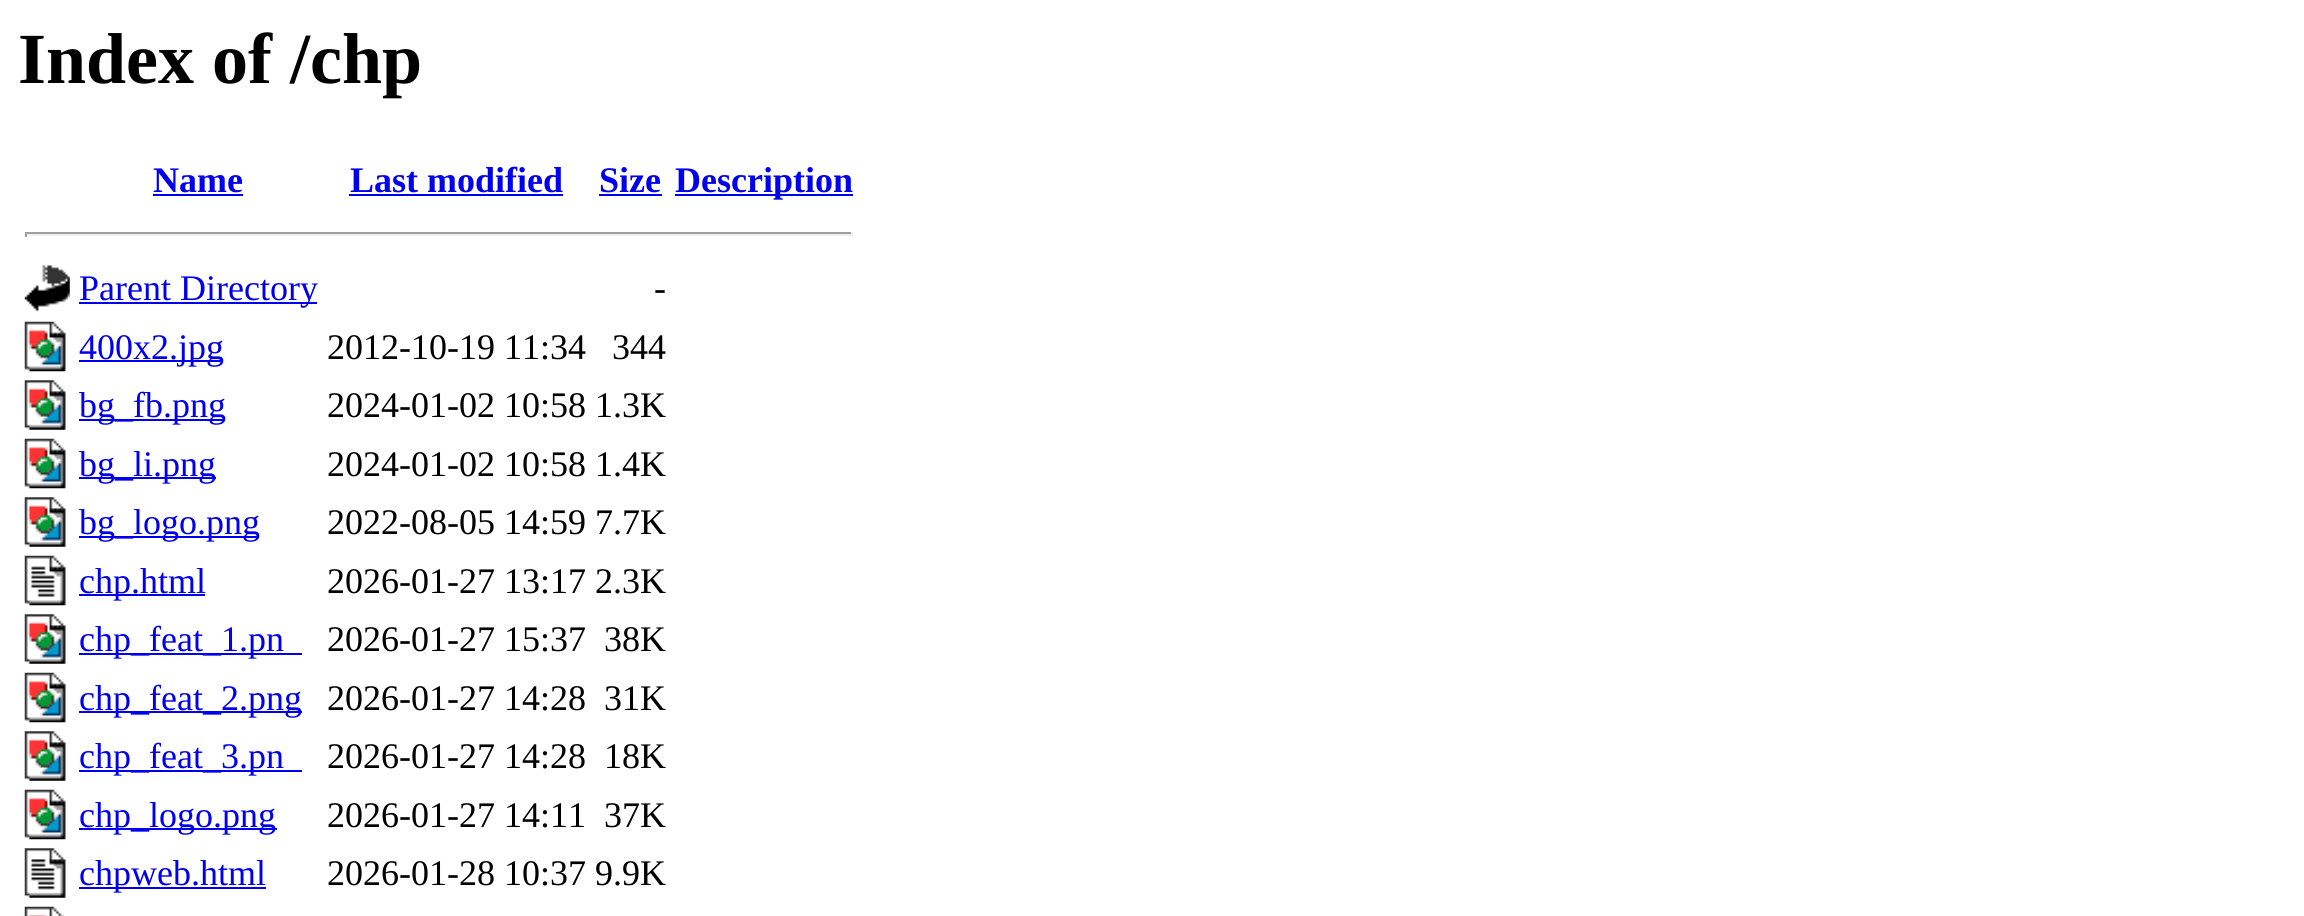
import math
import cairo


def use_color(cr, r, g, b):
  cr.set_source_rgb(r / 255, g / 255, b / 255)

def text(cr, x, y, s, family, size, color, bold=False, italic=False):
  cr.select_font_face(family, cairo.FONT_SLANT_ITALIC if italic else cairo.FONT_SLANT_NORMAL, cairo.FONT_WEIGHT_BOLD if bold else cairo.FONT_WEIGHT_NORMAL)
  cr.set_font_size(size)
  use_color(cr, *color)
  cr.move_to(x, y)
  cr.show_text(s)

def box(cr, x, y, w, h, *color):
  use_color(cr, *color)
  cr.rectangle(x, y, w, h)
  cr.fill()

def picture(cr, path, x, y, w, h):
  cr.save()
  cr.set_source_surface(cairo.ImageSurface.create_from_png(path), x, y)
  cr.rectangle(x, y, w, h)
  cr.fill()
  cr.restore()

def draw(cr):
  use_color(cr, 255, 255, 255)
  cr.paint()
  box(cr, 153, 194, 90, 2, 0, 0, 238)
  box(cr, 349, 194, 214, 2, 0, 0, 238)
  box(cr, 599, 194, 63, 2, 0, 0, 238)
  box(cr, 675, 194, 178, 2, 0, 0, 238)
  box(cr, 25, 232, 828, 2, 159, 159, 159)
  box(cr, 851, 232, 2, 5, 238, 238, 238)
  box(cr, 25, 234, 828, 2, 238, 238, 238)
  box(cr, 25, 232, 2, 5, 159, 159, 159)
  picture(cr, "img_01.png", 24, 265, 46, 47)
  box(cr, 79, 302, 238, 2, 0, 0, 238)
  picture(cr, "img_02.png", 24, 321, 42, 51)
  box(cr, 79, 360, 144, 2, 0, 0, 238)
  picture(cr, "img_03.png", 24, 380, 42, 50)
  box(cr, 79, 419, 146, 2, 0, 0, 238)
  picture(cr, "img_02.png", 24, 438, 42, 51)
  box(cr, 79, 477, 137, 2, 0, 0, 238)
  picture(cr, "img_03.png", 24, 497, 42, 50)
  box(cr, 79, 536, 180, 2, 0, 0, 238)
  picture(cr, "img_04.png", 24, 555, 42, 51)
  box(cr, 79, 594, 126, 2, 0, 0, 238)
  picture(cr, "img_03.png", 24, 614, 42, 50)
  box(cr, 79, 653, 223, 2, 0, 0, 238)
  picture(cr, "img_02.png", 24, 672, 42, 51)
  box(cr, 79, 711, 223, 2, 0, 0, 238)
  picture(cr, "img_03.png", 24, 731, 42, 50)
  box(cr, 79, 770, 223, 2, 0, 0, 238)
  picture(cr, "img_02.png", 24, 789, 42, 51)
  box(cr, 79, 828, 198, 2, 0, 0, 238)
  picture(cr, "img_05.png", 24, 848, 42, 50)
  box(cr, 79, 887, 187, 2, 0, 0, 238)
  picture(cr, "img_06.png", 24, 906, 40, 10)
  text(cr, 18, 83, "Index of /chp", "Liberation Serif", 72, (0, 0, 0), bold=True)
  text(cr, 153, 192, "Name", "Liberation Serif", 36, (0, 0, 238), bold=True)
  text(cr, 350, 192, "Last modified", "Liberation Serif", 36, (0, 0, 238), bold=True)
  text(cr, 599, 192, "Size", "Liberation Serif", 36, (0, 0, 238), bold=True)
  text(cr, 675, 192, "Description", "Liberation Serif", 36, (0, 0, 238), bold=True)
  text(cr, 79, 300, "Parent Directory", "Liberation Serif", 36, (0, 0, 238))
  text(cr, 654, 300, "-", "Liberation Serif", 36, (0, 0, 0))
  text(cr, 79, 359, "400x2.jpg", "Liberation Serif", 36, (0, 0, 238))
  text(cr, 327, 359, "2012-10-19 11:34", "Liberation Serif", 36, (0, 0, 0))
  text(cr, 612, 359, "344", "Liberation Serif", 36, (0, 0, 0))
  text(cr, 79, 417, "bg_fb.png", "Liberation Serif", 36, (0, 0, 238))
  text(cr, 327, 417, "2024-01-02 10:58 1.3K", "Liberation Serif", 36, (0, 0, 0))
  text(cr, 79, 476, "bg_li.png", "Liberation Serif", 36, (0, 0, 238))
  text(cr, 327, 476, "2024-01-02 10:58 1.4K", "Liberation Serif", 36, (0, 0, 0))
  text(cr, 79, 534, "bg_logo.png", "Liberation Serif", 36, (0, 0, 238))
  text(cr, 327, 534, "2022-08-05 14:59 7.7K", "Liberation Serif", 36, (0, 0, 0))
  text(cr, 79, 593, "chp.html", "Liberation Serif", 36, (0, 0, 238))
  text(cr, 327, 593, "2026-01-27 13:17 2.3K", "Liberation Serif", 36, (0, 0, 0))
  text(cr, 79, 651, "chp_feat_1.pn", "Liberation Serif", 36, (0, 0, 238))
  text(cr, 327, 651, "2026-01-27 15:37", "Liberation Serif", 36, (0, 0, 0))
  text(cr, 604, 651, "38K", "Liberation Serif", 36, (0, 0, 0))
  text(cr, 79, 710, "chp_feat_2.png", "Liberation Serif", 36, (0, 0, 238))
  text(cr, 327, 710, "2026-01-27 14:28", "Liberation Serif", 36, (0, 0, 0))
  text(cr, 604, 710, "31K", "Liberation Serif", 36, (0, 0, 0))
  text(cr, 79, 768, "chp_feat_3.pn", "Liberation Serif", 36, (0, 0, 238))
  text(cr, 327, 768, "2026-01-27 14:28", "Liberation Serif", 36, (0, 0, 0))
  text(cr, 604, 768, "18K", "Liberation Serif", 36, (0, 0, 0))
  text(cr, 79, 827, "chp_logo.png", "Liberation Serif", 36, (0, 0, 238))
  text(cr, 327, 827, "2026-01-27 14:11", "Liberation Serif", 36, (0, 0, 0))
  text(cr, 604, 827, "37K", "Liberation Serif", 36, (0, 0, 0))
  text(cr, 79, 885, "chpweb.html", "Liberation Serif", 36, (0, 0, 238))
  text(cr, 327, 885, "2026-01-28 10:37 9.9K", "Liberation Serif", 36, (0, 0, 0))


surface = cairo.ImageSurface(cairo.FORMAT_RGB24, 2304, 916)
cr = cairo.Context(surface)
options = cairo.FontOptions()
options.set_hint_metrics(cairo.HINT_METRICS_OFF)
options.set_hint_style(cairo.HINT_STYLE_NONE)
cr.set_font_options(options)
cr.set_miter_limit(4)
draw(cr)
surface.write_to_png("out.png")
